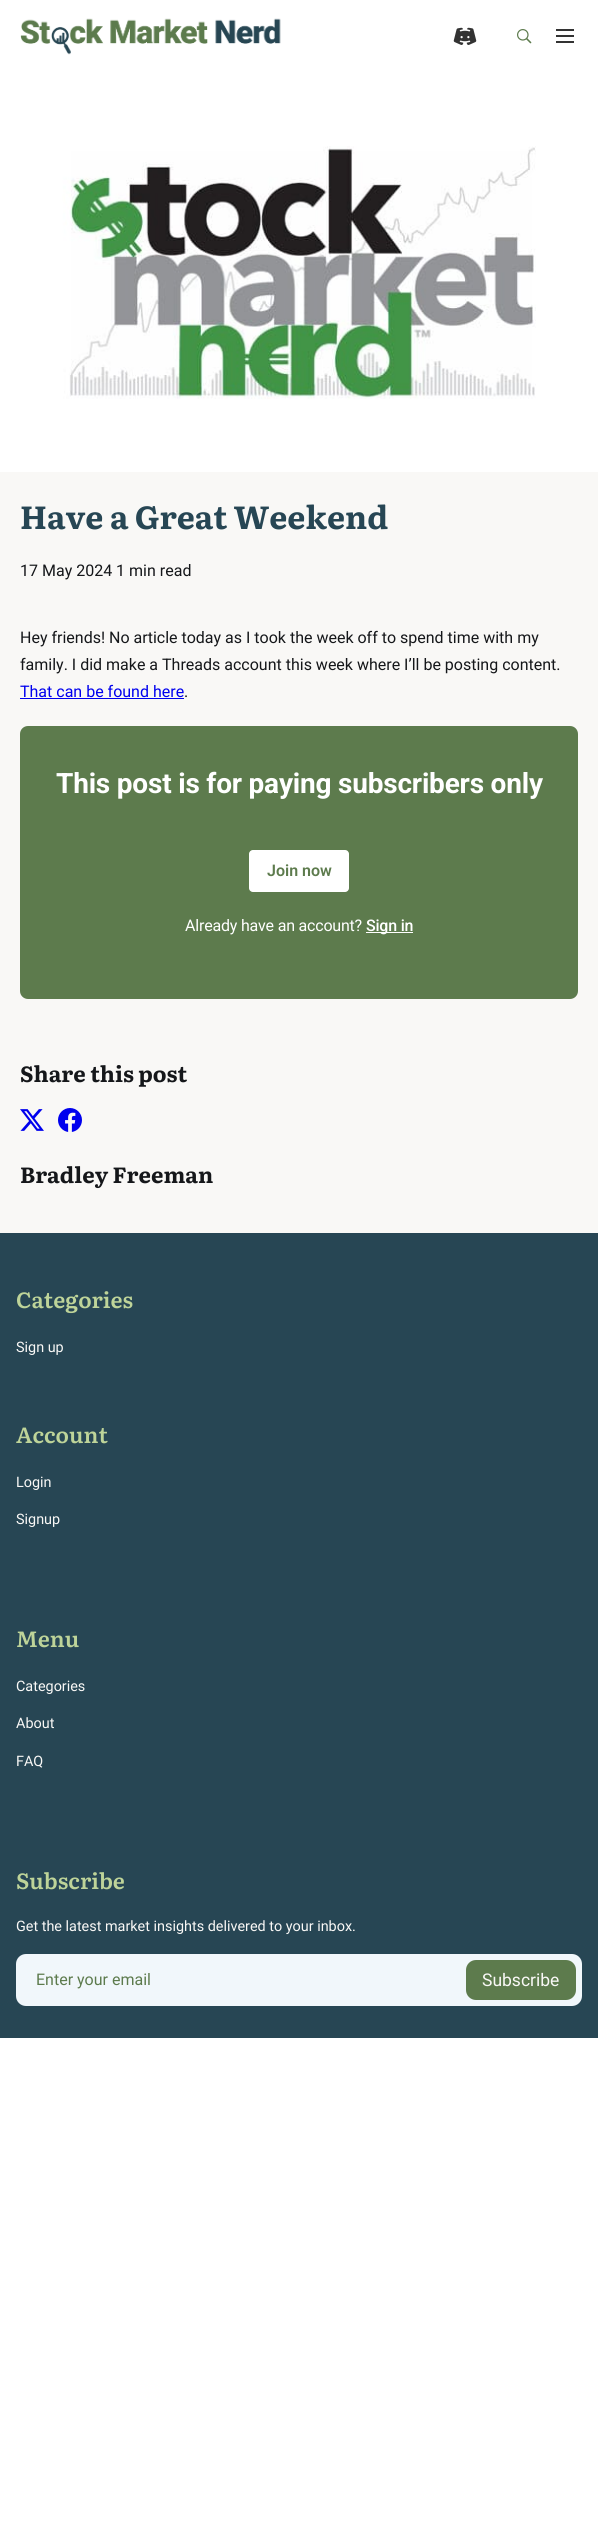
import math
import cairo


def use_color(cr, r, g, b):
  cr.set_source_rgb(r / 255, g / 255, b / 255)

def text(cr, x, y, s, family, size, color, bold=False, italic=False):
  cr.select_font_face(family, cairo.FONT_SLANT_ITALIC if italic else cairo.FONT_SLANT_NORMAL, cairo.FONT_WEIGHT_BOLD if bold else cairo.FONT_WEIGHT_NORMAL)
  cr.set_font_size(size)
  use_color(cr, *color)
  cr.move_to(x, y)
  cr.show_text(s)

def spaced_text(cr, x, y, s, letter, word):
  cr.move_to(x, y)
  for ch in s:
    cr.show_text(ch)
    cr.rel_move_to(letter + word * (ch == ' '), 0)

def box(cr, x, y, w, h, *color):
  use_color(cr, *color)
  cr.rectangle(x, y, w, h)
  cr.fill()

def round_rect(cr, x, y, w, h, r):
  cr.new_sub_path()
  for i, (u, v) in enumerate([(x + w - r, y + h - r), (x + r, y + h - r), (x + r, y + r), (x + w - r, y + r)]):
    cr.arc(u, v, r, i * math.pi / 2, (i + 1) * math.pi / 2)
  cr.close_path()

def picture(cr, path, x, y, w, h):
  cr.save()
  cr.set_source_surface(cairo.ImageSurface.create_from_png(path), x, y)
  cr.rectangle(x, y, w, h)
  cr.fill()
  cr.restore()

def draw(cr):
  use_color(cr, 255, 255, 255)
  cr.paint()
  picture(cr, "img_01.png", 20, 18, 261, 37)
  picture(cr, "img_02.png", 453, 27, 24, 18)
  picture(cr, "img_03.png", 517, 29, 15, 15)
  box(cr, 556, 29, 18, 2, 51, 51, 51)
  box(cr, 556, 35, 18, 2, 51, 51, 51)
  box(cr, 556, 41, 18, 2, 51, 51, 51)
  box(cr, 0, 472, 598, 761, 249, 248, 246)
  picture(cr, "img_04.png", 0, 72, 598, 400)
  box(cr, 20, 698, 164, 1, 0, 0, 238)
  use_color(cr, 93, 123, 77)
  round_rect(cr, 20, 726, 558, 273, 8)
  cr.fill()
  use_color(cr, 255, 255, 255)
  round_rect(cr, 249, 850, 100, 42, 4)
  cr.fill()
  box(cr, 366, 932, 47, 1, 255, 255, 255)
  picture(cr, "img_05.png", 20, 1109, 24, 22)
  picture(cr, "img_06.png", 58, 1108, 24, 24)
  box(cr, 0, 1233, 598, 805, 39, 70, 84)
  use_color(cr, 241, 247, 251)
  round_rect(cr, 16, 1954, 566, 52, 10)
  cr.fill()
  use_color(cr, 93, 123, 77)
  round_rect(cr, 466, 1960, 110, 40, 10)
  cr.fill()
  text(cr, 20, 529, "Have a Great Weekend", "Literata", 32, (39, 70, 84), bold=True)
  text(cr, 20, 576, "17 May 2024 1 min read", "Roboto", 16, (21, 23, 26))
  text(cr, 20, 643, "Hey friends! No article today as I took the week off to spend time with my", "Roboto", 16, (21, 23, 26))
  text(cr, 20, 670, "family. I did make a Threads account this week where I’ll be posting content.", "Roboto", 16, (21, 23, 26))
  text(cr, 20, 697, "That can be found here", "Roboto", 16, (0, 0, 238))
  text(cr, 184, 697, ".", "Roboto", 16, (21, 23, 26))
  cr.select_font_face("Roboto", cairo.FONT_SLANT_NORMAL, cairo.FONT_WEIGHT_BOLD)
  cr.set_font_size(28)
  use_color(cr, 255, 255, 255)
  spaced_text(cr, 56, 793, "This post is for paying subscribers only", -0.2, 0)
  text(cr, 267, 876, "Join now", "Roboto SemiBold", 16, (93, 123, 77))
  cr.select_font_face("Roboto")
  use_color(cr, 255, 255, 255)
  spaced_text(cr, 185, 931, "Already have an account?", -0.2, 0)
  cr.select_font_face("Roboto Medium")
  spaced_text(cr, 366, 931, "Sign in", -0.2, 0)
  text(cr, 20, 1082, "Share this post", "Literata", 22, (21, 23, 26), bold=True)
  text(cr, 20, 1183, "Bradley Freeman", "Literata", 22, (21, 23, 26), bold=True)
  text(cr, 16, 1308, "Categories", "Literata SemiBold", 22, (190, 212, 153))
  text(cr, 16, 1352, "Sign up", "Roboto", 14.4, (249, 248, 246))
  text(cr, 16, 1443, "Account", "Literata SemiBold", 22, (190, 212, 153))
  text(cr, 16, 1487, "Login", "Roboto", 14.4, (249, 248, 246))
  text(cr, 16, 1524, "Signup", "Roboto", 14.4, (249, 248, 246))
  text(cr, 16, 1647, "Menu", "Literata SemiBold", 22, (190, 212, 153))
  text(cr, 16, 1691, "Categories", "Roboto", 14.4, (249, 248, 246))
  text(cr, 16, 1728, "About", "Roboto", 14.4, (249, 248, 246))
  text(cr, 16, 1766, "FAQ", "Roboto", 14.4, (249, 248, 246))
  text(cr, 16, 1889, "Subscribe", "Literata SemiBold", 22, (190, 212, 153))
  text(cr, 16, 1931, "Get the latest market insights delivered to your inbox.", "Roboto", 14.4, (249, 248, 246))
  text(cr, 36, 1985, "Enter your email", "Roboto", 16, (93, 123, 77))
  text(cr, 482, 1986, "Subscribe", "Roboto", 17.5, (249, 248, 246))


surface = cairo.ImageSurface(cairo.FORMAT_RGB24, 598, 2546)
cr = cairo.Context(surface)
options = cairo.FontOptions()
options.set_hint_metrics(cairo.HINT_METRICS_OFF)
options.set_hint_style(cairo.HINT_STYLE_NONE)
cr.set_font_options(options)
cr.set_miter_limit(4)
draw(cr)
surface.write_to_png("out.png")
